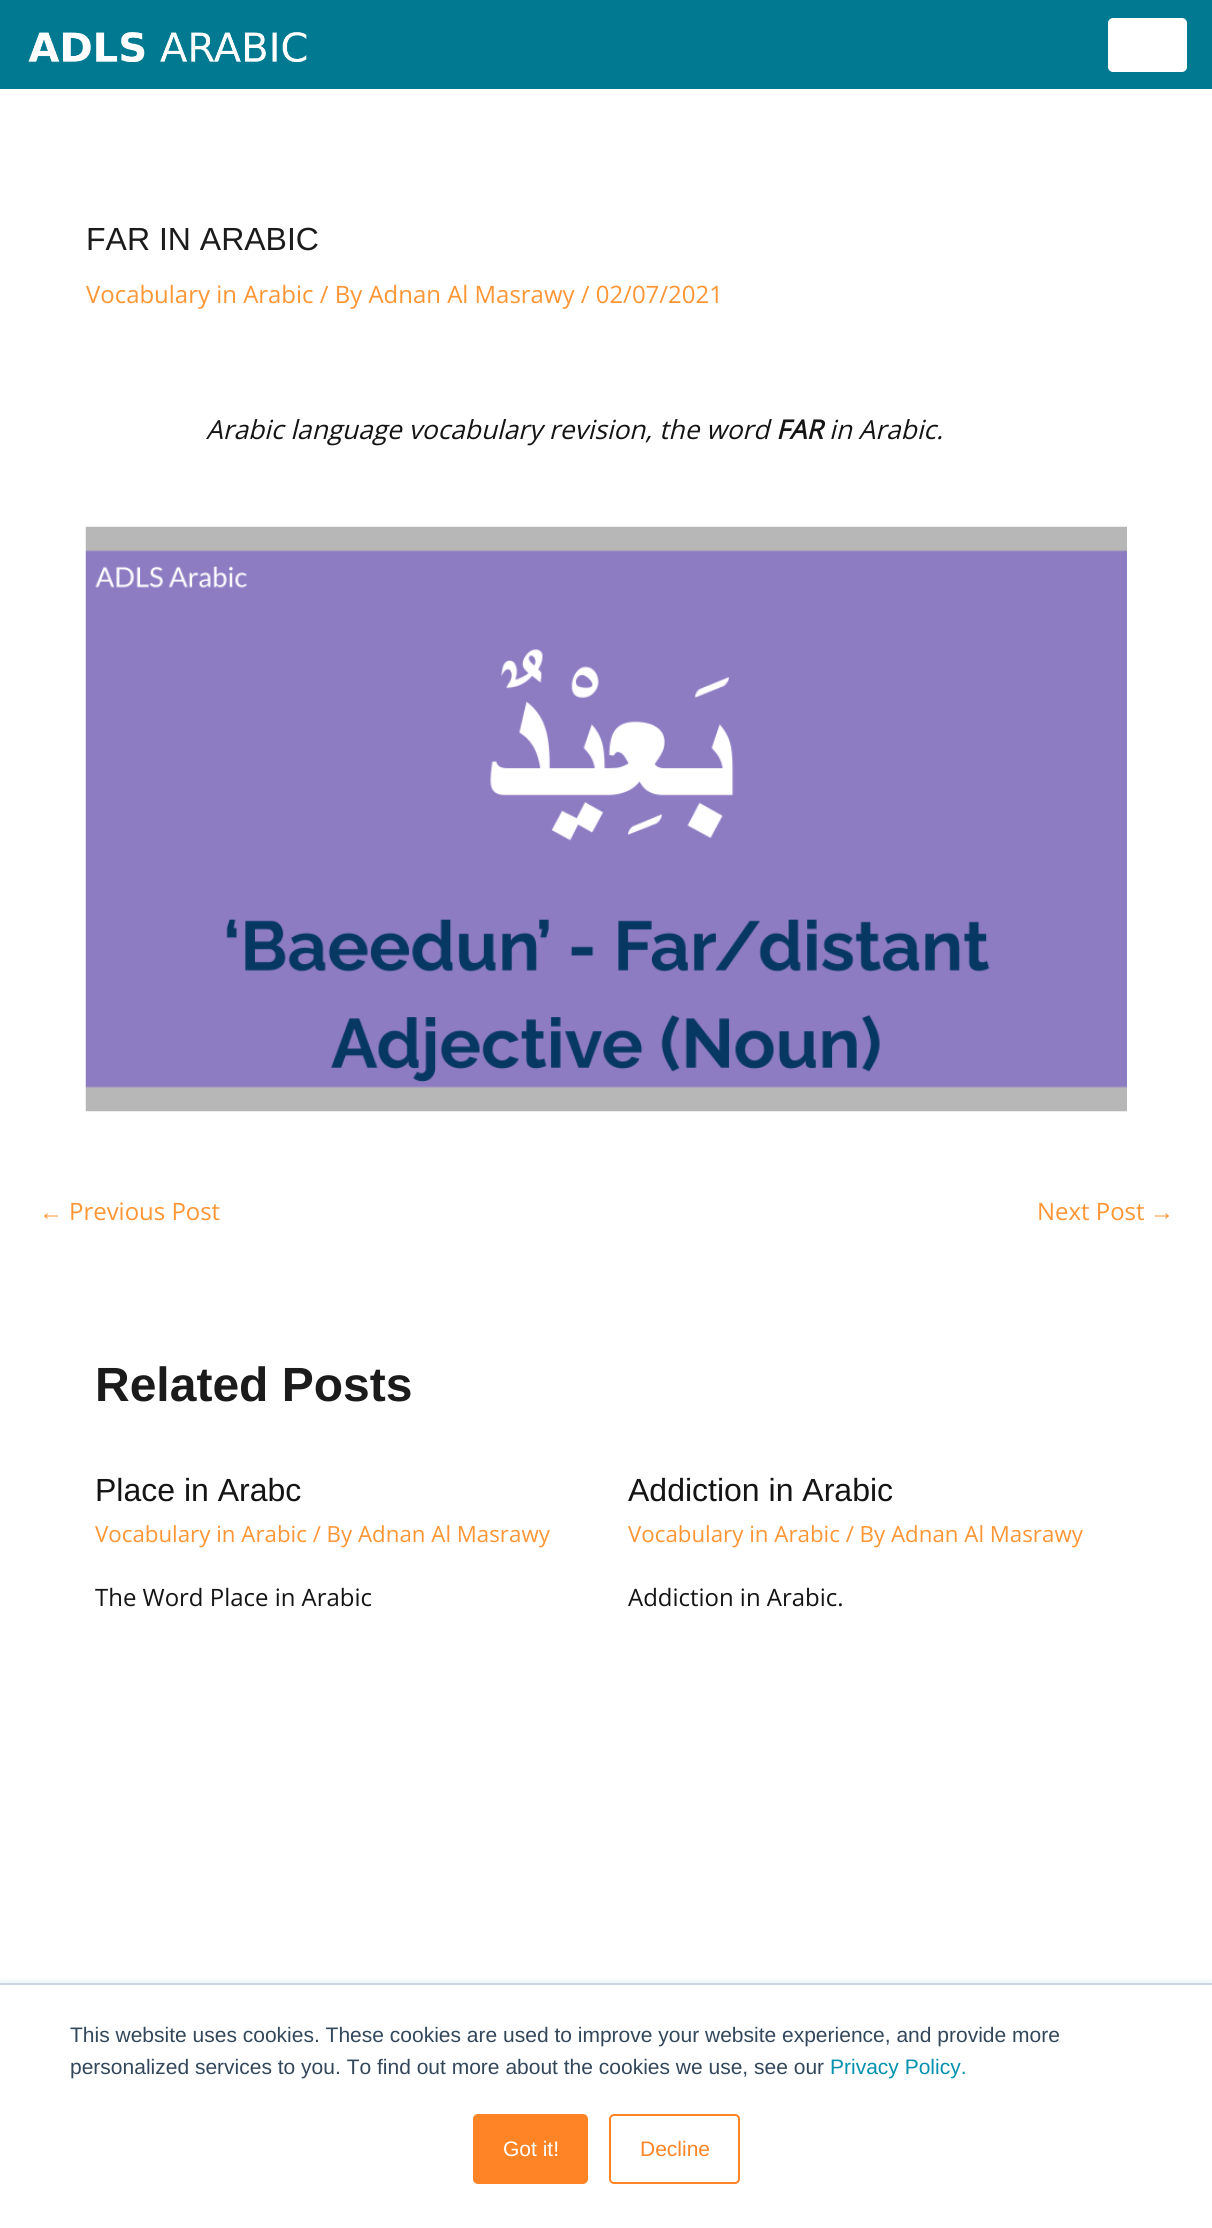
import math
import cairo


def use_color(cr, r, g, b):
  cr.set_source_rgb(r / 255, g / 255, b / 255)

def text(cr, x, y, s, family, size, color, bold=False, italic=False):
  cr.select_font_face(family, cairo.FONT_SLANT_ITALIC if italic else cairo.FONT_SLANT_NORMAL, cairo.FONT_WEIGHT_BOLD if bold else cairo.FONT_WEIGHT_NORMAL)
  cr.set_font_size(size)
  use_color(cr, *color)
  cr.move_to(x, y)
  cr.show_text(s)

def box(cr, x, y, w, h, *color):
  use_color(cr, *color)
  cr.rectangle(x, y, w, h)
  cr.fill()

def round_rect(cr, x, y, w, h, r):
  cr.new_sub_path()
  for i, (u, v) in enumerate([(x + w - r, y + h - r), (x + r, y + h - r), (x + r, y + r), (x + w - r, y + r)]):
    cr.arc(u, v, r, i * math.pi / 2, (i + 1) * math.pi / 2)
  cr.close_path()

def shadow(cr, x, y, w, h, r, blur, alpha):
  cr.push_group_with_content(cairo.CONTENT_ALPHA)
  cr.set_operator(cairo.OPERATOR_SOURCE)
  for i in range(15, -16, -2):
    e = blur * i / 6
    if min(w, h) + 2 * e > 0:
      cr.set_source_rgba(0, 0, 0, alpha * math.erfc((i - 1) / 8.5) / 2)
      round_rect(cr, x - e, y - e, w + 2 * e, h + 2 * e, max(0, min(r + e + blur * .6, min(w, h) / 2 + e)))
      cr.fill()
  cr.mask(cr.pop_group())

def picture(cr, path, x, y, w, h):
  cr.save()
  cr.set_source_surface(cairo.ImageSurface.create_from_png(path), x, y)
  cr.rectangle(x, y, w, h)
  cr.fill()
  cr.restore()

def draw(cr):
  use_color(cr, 255, 255, 255)
  cr.paint()
  box(cr, 0, 0, 1212, 89, 0, 121, 145)
  picture(cr, "img_01.png", 28, 32, 279, 30)
  use_color(cr, 255, 255, 255)
  round_rect(cr, 1109, 19, 77, 52, 4)
  cr.fill_preserve()
  cr.stroke()
  picture(cr, "img_02.png", 85, 526, 1042, 586)
  use_color(cr, 234, 240, 246)
  shadow(cr, 0, 1981, 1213, 247, 0, 2.5, 1)
  box(cr, 0, 1985, 1212, 243, 255, 255, 255)
  box(cr, 0, 1983, 1212, 2, 203, 214, 226)
  use_color(cr, 255, 132, 38)
  round_rect(cr, 474, 2115, 113, 68, 4)
  cr.fill_preserve()
  cr.stroke()
  round_rect(cr, 610, 2115, 129, 68, 4)
  cr.stroke()
  text(cr, 86, 250, "FAR IN ARABIC", "Liberation Sans", 32, (27, 27, 27))
  text(cr, 86, 303, "Vocabulary in Arabic / By Adnan Al Masrawy / 02/07/2021", "Open Sans", 23.95, (255, 150, 53))
  text(cr, 206, 439, "Arabic language vocabulary revision, the word", "Open Sans", 26.3, (20, 20, 21), italic=True)
  text(cr, 776, 439, "FAR", "Open Sans", 26.3, (20, 20, 21), bold=True, italic=True)
  text(cr, 829, 439, "in Arabic.", "Open Sans", 26.3, (20, 20, 21), italic=True)
  text(cr, 39, 1220, "←", "Liberation Sans", 23.95, (255, 150, 53))
  text(cr, 69, 1220, "Previous Post", "Open Sans", 23.95, (255, 150, 53))
  text(cr, 1037, 1220, "Next Post", "Open Sans", 23.95, (255, 150, 53))
  text(cr, 1150, 1220, "→", "Liberation Sans", 23.95, (255, 150, 53))
  text(cr, 95, 1401, "Related Posts", "Liberation Sans", 48, (27, 27, 27), bold=True)
  text(cr, 95, 1501, "Place in Arabc", "Liberation Sans", 32, (20, 20, 21))
  text(cr, 95, 1542, "Vocabulary in Arabic / By Adnan Al Masrawy", "Open Sans", 22.3, (255, 150, 53))
  text(cr, 95, 1606, "The Word Place in Arabic", "Open Sans", 23.95, (20, 20, 21))
  text(cr, 628, 1501, "Addiction in Arabic", "Liberation Sans", 32, (20, 20, 21))
  text(cr, 628, 1542, "Vocabulary in Arabic / By Adnan Al Masrawy", "Open Sans", 22.3, (255, 150, 53))
  text(cr, 628, 1606, "Addiction in Arabic.", "Open Sans", 23.95, (20, 20, 21))
  text(cr, 70, 2042, "This website uses cookies. These cookies are used to improve your website experience, and provide more", "Liberation Sans", 21, (51, 71, 91))
  text(cr, 70, 2074, "personalized services to you. To find out more about the cookies we use, see our", "Liberation Sans", 21, (51, 71, 91))
  text(cr, 830, 2074, "Privacy Policy.", "Liberation Sans", 21, (0, 145, 174))
  text(cr, 503, 2156, "Got it!", "Liberation Sans", 21, (255, 255, 255))
  text(cr, 640, 2156, "Decline", "Liberation Sans", 21, (255, 132, 38))


surface = cairo.ImageSurface(cairo.FORMAT_RGB24, 1212, 2228)
cr = cairo.Context(surface)
options = cairo.FontOptions()
options.set_hint_metrics(cairo.HINT_METRICS_OFF)
options.set_hint_style(cairo.HINT_STYLE_NONE)
cr.set_font_options(options)
cr.set_miter_limit(4)
draw(cr)
surface.write_to_png("out.png")
